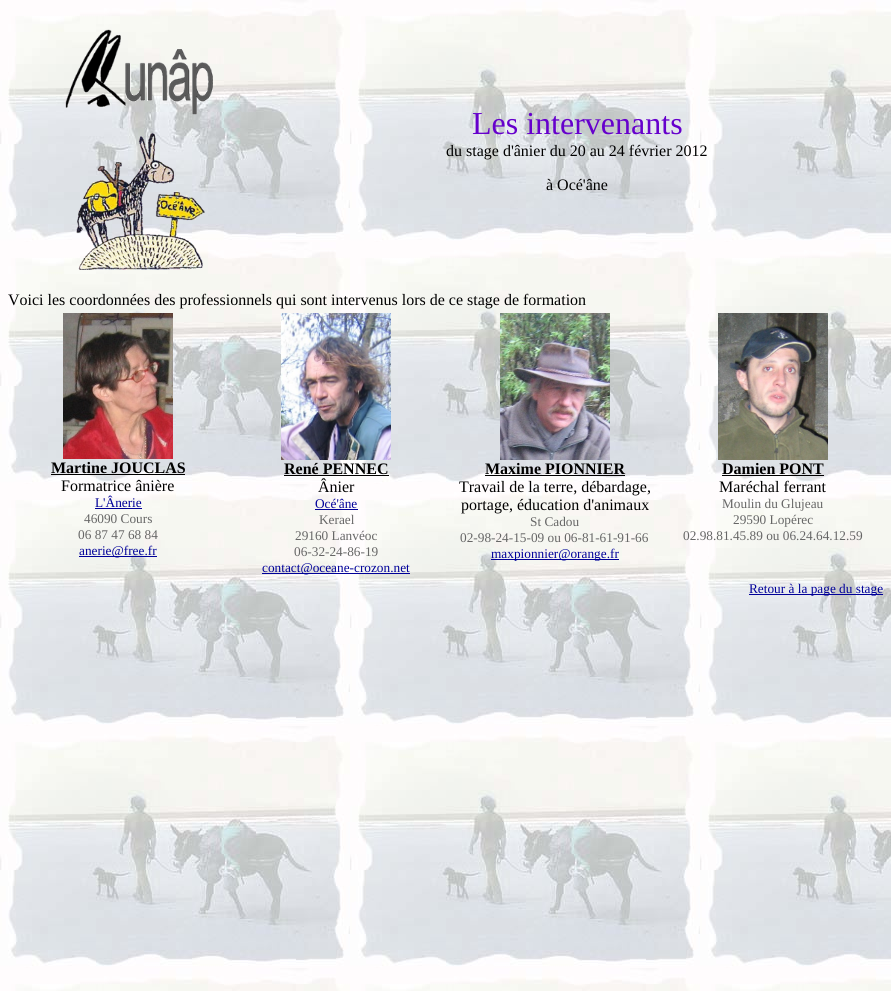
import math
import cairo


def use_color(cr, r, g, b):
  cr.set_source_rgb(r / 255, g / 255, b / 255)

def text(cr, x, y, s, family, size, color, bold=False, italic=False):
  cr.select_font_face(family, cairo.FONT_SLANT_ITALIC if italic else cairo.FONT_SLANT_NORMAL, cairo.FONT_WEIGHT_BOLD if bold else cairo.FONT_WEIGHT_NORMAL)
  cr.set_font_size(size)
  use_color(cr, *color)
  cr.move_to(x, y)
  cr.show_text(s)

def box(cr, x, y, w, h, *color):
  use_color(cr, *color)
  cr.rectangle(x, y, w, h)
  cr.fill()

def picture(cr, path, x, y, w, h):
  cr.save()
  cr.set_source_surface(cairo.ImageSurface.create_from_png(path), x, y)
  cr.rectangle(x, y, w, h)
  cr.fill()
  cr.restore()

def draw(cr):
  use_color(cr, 255, 255, 255)
  cr.paint()
  picture(cr, "img_01.png", 0, 0, 891, 991)
  picture(cr, "img_02.png", 65, 29, 148, 86)
  picture(cr, "img_03.png", 76, 133, 129, 137)
  picture(cr, "img_04.png", 63, 313, 110, 146)
  box(cr, 51, 474, 134, 1, 0, 0, 0)
  box(cr, 95, 508, 47, 1, 0, 0, 153)
  box(cr, 79, 556, 78, 1, 0, 0, 153)
  picture(cr, "img_05.png", 281, 313, 110, 147)
  box(cr, 284, 475, 105, 1, 0, 0, 0)
  box(cr, 315, 509, 43, 1, 0, 0, 153)
  box(cr, 262, 573, 148, 1, 0, 0, 153)
  picture(cr, "img_06.png", 500, 313, 110, 147)
  box(cr, 485, 475, 140, 1, 0, 0, 0)
  box(cr, 491, 559, 128, 1, 0, 0, 153)
  picture(cr, "img_07.png", 718, 313, 110, 147)
  box(cr, 722, 475, 102, 1, 0, 0, 0)
  box(cr, 749, 594, 134, 1, 0, 0, 153)
  text(cr, 472, 134, "Les intervenants", "Liberation Serif", 32, (102, 0, 204))
  text(cr, 446, 156, "du stage d'ânier du 20 au 24 février 2012", "Liberation Serif", 16, (0, 0, 0))
  text(cr, 546, 190, "à Océ'âne", "Liberation Serif", 16, (0, 0, 0))
  text(cr, 8, 305, "Voici les coordonnées des professionnels qui sont intervenus lors de ce stage de formation", "Liberation Serif", 16, (0, 0, 0))
  text(cr, 51, 473, "Martine JOUCLAS", "Liberation Serif", 16, (0, 0, 0), bold=True)
  text(cr, 61, 491, "Formatrice ânière", "Liberation Serif", 16, (0, 0, 0))
  text(cr, 95, 507, "L'Ânerie", "Liberation Serif", 13.3, (0, 0, 153))
  text(cr, 84, 523, "46090 Cours", "Liberation Serif", 13.3, (102, 102, 102))
  text(cr, 78, 539, "06 87 47 68 84", "Liberation Serif", 13.3, (102, 102, 102))
  text(cr, 79, 555, "anerie@free.fr", "Liberation Serif", 13.3, (0, 0, 153))
  text(cr, 284, 474, "René PENNEC", "Liberation Serif", 16, (0, 0, 0), bold=True)
  text(cr, 318, 492, "Ânier", "Liberation Serif", 16, (0, 0, 0))
  text(cr, 315, 508, "Océ'âne", "Liberation Serif", 13.3, (0, 0, 153))
  text(cr, 319, 524, "Kerael", "Liberation Serif", 13.3, (102, 102, 102))
  text(cr, 295, 540, "29160 Lanvéoc", "Liberation Serif", 13.3, (102, 102, 102))
  text(cr, 294, 556, "06-32-24-86-19", "Liberation Serif", 13.3, (102, 102, 102))
  text(cr, 262, 572, "contact@oceane-crozon.net", "Liberation Serif", 13.3, (0, 0, 153))
  text(cr, 485, 474, "Maxime PIONNIER", "Liberation Serif", 16, (0, 0, 0), bold=True)
  text(cr, 459, 492, "Travail de la terre, débardage,", "Liberation Serif", 16, (0, 0, 0))
  text(cr, 461, 510, "portage, éducation d'animaux", "Liberation Serif", 16, (0, 0, 0))
  text(cr, 530, 526, "St Cadou", "Liberation Serif", 13.3, (102, 102, 102))
  text(cr, 460, 542, "02-98-24-15-09 ou 06-81-61-91-66", "Liberation Serif", 13.3, (102, 102, 102))
  text(cr, 491, 558, "maxpionnier@orange.fr", "Liberation Serif", 13.3, (0, 0, 153))
  text(cr, 722, 474, "Damien PONT", "Liberation Serif", 16, (0, 0, 0), bold=True)
  text(cr, 719, 492, "Maréchal ferrant", "Liberation Serif", 16, (0, 0, 0))
  text(cr, 722, 508, "Moulin du Glujeau", "Liberation Serif", 13.3, (102, 102, 102))
  text(cr, 733, 524, "29590 Lopérec", "Liberation Serif", 13.3, (102, 102, 102))
  text(cr, 683, 540, "02.98.81.45.89 ou 06.24.64.12.59", "Liberation Serif", 13.3, (102, 102, 102))
  text(cr, 749, 593, "Retour à la page du stage", "Liberation Serif", 13.3, (0, 0, 153))


surface = cairo.ImageSurface(cairo.FORMAT_RGB24, 891, 991)
cr = cairo.Context(surface)
options = cairo.FontOptions()
options.set_hint_metrics(cairo.HINT_METRICS_OFF)
options.set_hint_style(cairo.HINT_STYLE_NONE)
cr.set_font_options(options)
cr.set_miter_limit(4)
draw(cr)
surface.write_to_png("out.png")
